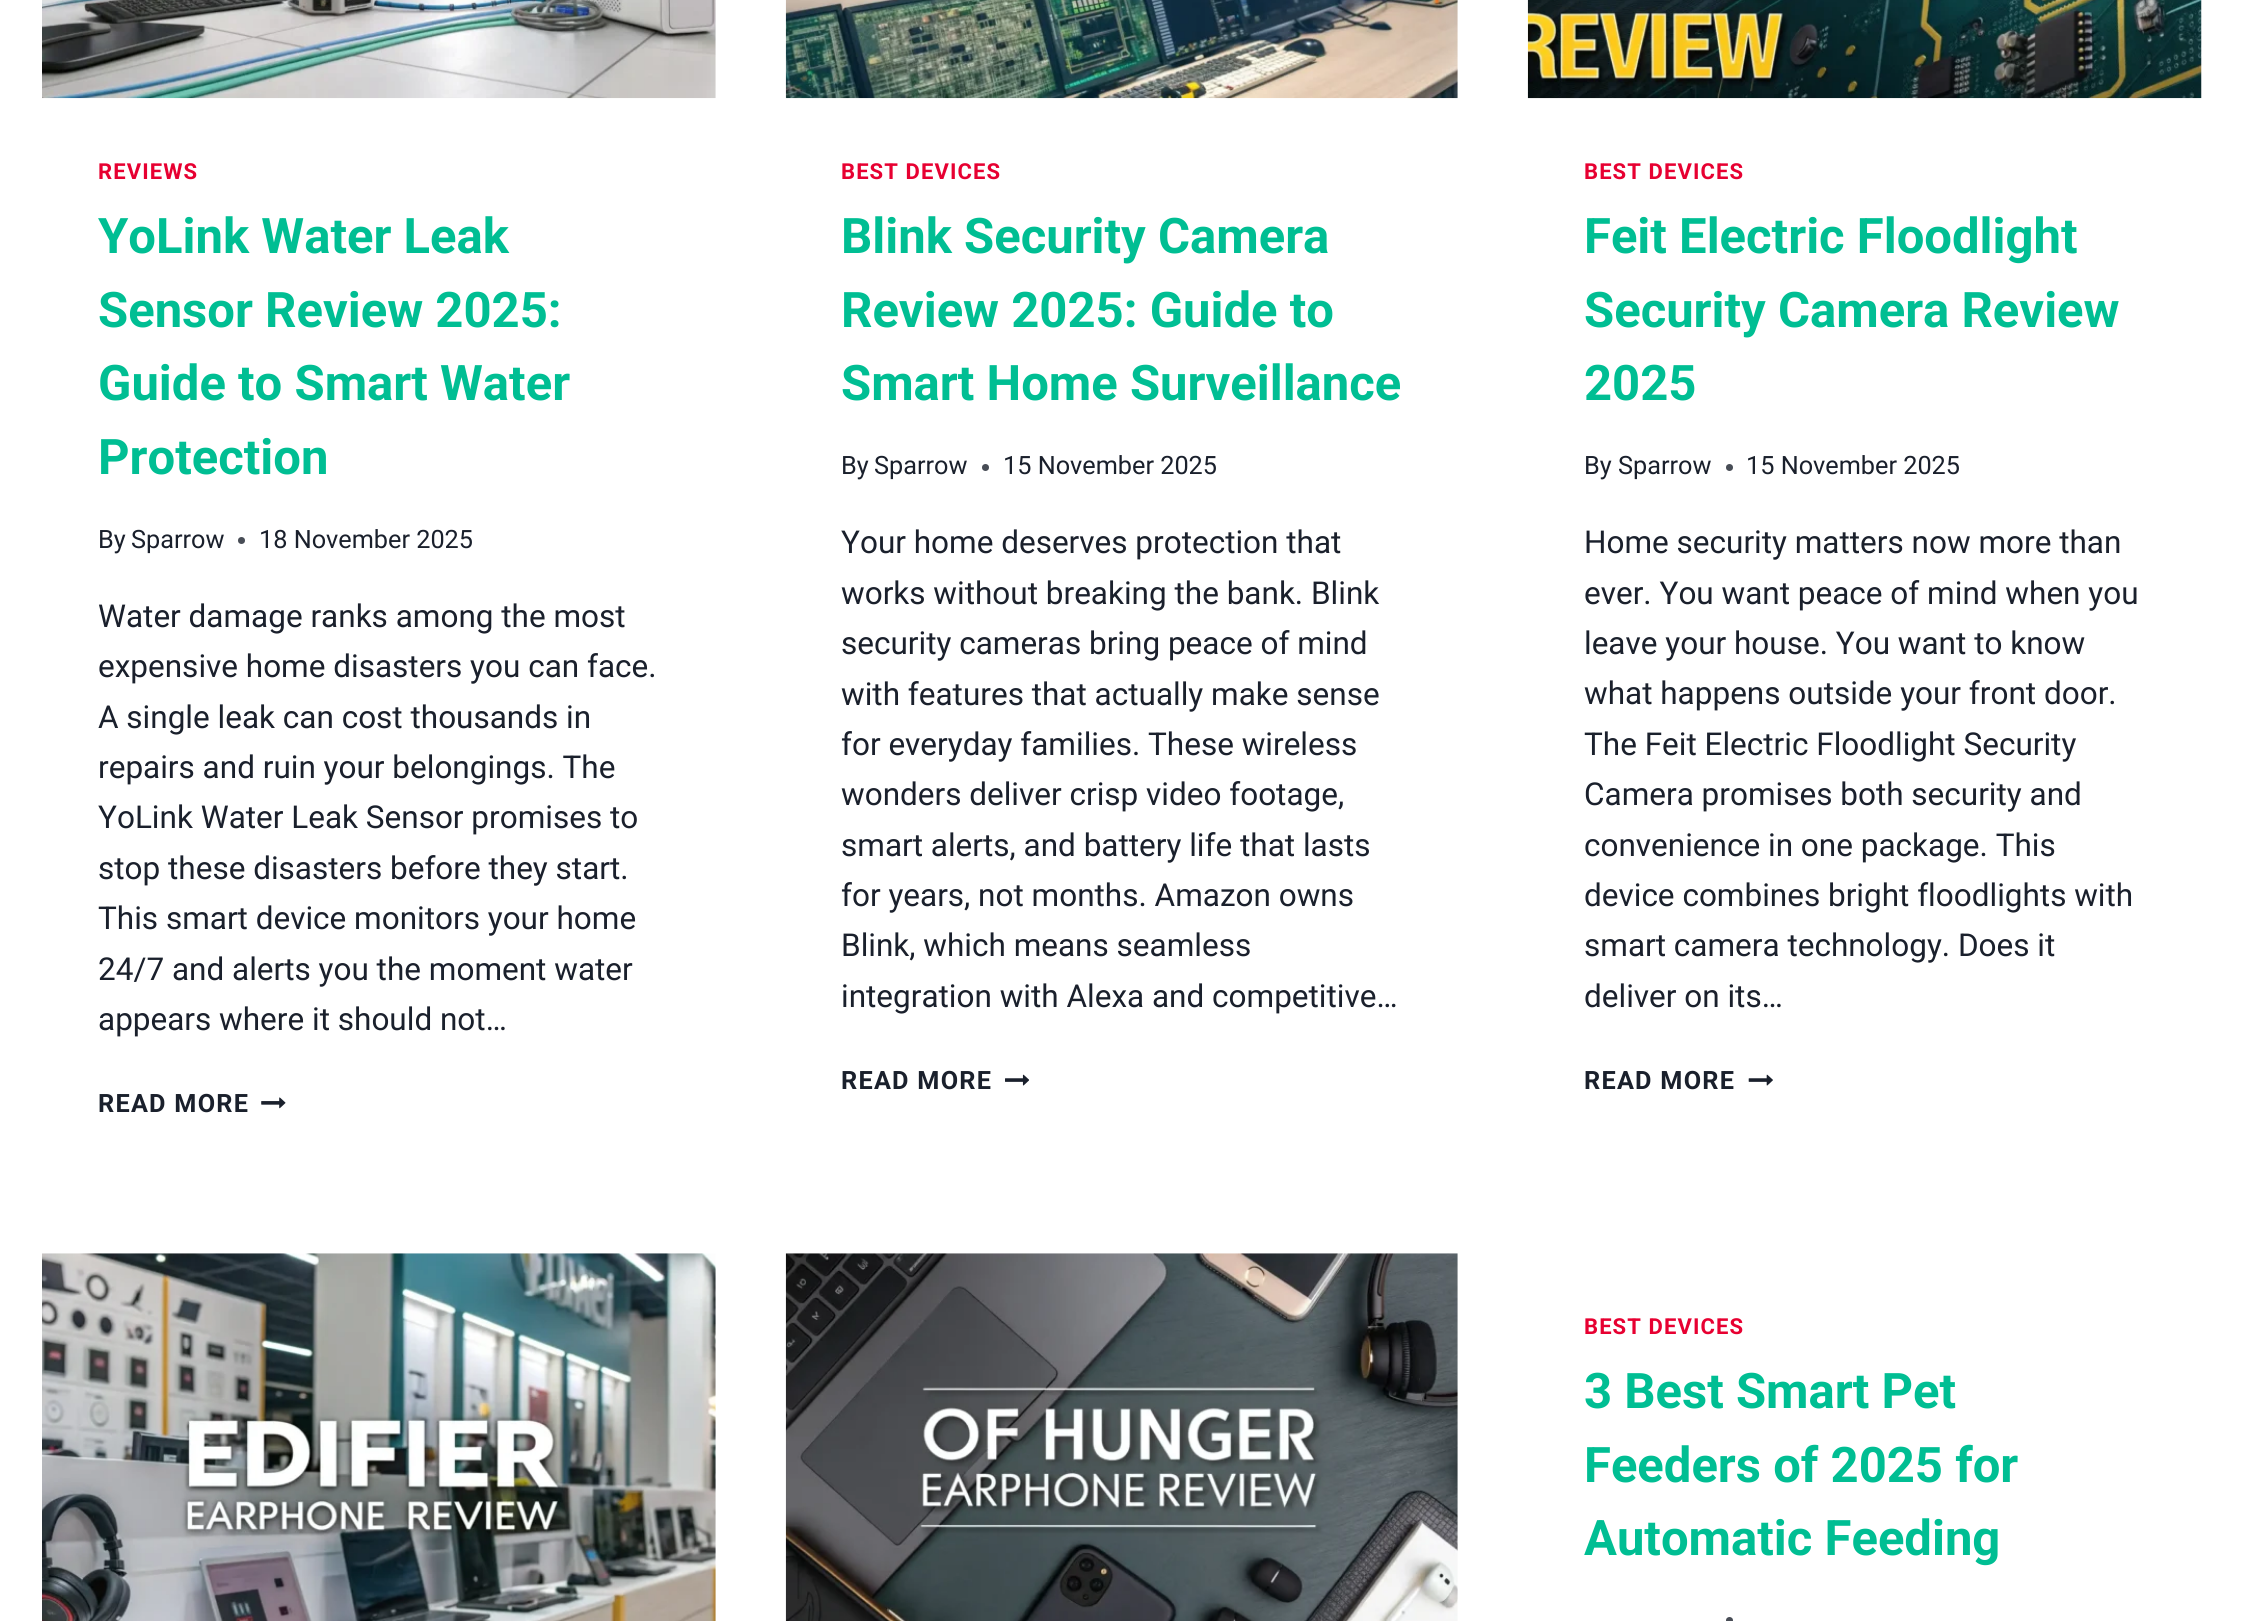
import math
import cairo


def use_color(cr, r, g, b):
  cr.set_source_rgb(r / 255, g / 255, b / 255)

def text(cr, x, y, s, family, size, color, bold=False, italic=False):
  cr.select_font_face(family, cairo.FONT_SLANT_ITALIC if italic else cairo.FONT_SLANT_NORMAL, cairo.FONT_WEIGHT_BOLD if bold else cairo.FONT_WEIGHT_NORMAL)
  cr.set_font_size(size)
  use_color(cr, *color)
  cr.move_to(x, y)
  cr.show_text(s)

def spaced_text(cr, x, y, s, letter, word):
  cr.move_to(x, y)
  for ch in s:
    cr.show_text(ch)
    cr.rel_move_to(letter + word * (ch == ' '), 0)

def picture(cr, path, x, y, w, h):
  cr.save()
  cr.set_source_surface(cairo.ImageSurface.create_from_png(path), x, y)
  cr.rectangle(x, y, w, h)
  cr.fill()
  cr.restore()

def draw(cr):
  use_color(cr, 255, 255, 255)
  cr.paint()
  picture(cr, "img_01.png", 42, 0, 674, 99)
  use_color(cr, 72, 77, 86)
  cr.arc(241.5, 540.5, 3.5, 0, 2 * math.pi)
  cr.fill()
  picture(cr, "img_02.png", 261, 1097, 25, 12)
  picture(cr, "img_03.png", 785, 0, 673, 99)
  cr.arc(985.5, 467.5, 3.5, 0, 2 * math.pi)
  cr.fill()
  picture(cr, "img_04.png", 1005, 1074, 24, 12)
  picture(cr, "img_05.png", 1527, 0, 675, 99)
  cr.arc(1729.5, 467.5, 3.5, 0, 2 * math.pi)
  cr.fill()
  picture(cr, "img_06.png", 1748, 1074, 25, 12)
  picture(cr, "img_07.png", 42, 1253, 674, 368)
  picture(cr, "img_08.png", 785, 1253, 673, 368)
  cr.arc(1729.5, 1620.5, 3.5, 0, 2 * math.pi)
  cr.fill()
  cr.select_font_face("Roboto", cairo.FONT_SLANT_NORMAL, cairo.FONT_WEIGHT_BOLD)
  cr.set_font_size(22)
  use_color(cr, 231, 0, 49)
  spaced_text(cr, 98, 179, "REVIEWS", 1.1, 0)
  text(cr, 98, 253, "YoLink Water Leak", "Roboto", 49, (0, 190, 147), bold=True)
  text(cr, 98, 327, "Sensor Review 2025:", "Roboto", 49, (0, 190, 147), bold=True)
  text(cr, 98, 400, "Guide to Smart Water", "Roboto", 49, (0, 190, 147), bold=True)
  text(cr, 98, 474, "Protection", "Roboto", 49, (0, 190, 147), bold=True)
  text(cr, 98, 548, "By", "Roboto", 25.25, (26, 32, 44))
  text(cr, 131, 548, "Sparrow", "Roboto", 25.25, (26, 32, 44))
  text(cr, 259, 548, "18 November 2025", "Roboto", 25.25, (26, 32, 44))
  text(cr, 98, 627, "Water damage ranks among the most", "Roboto", 31.5, (26, 32, 44))
  text(cr, 98, 677, "expensive home disasters you can face.", "Roboto", 31.5, (26, 32, 44))
  text(cr, 98, 728, "A single leak can cost thousands in", "Roboto", 31.5, (26, 32, 44))
  text(cr, 98, 778, "repairs and ruin your belongings. The", "Roboto", 31.5, (26, 32, 44))
  text(cr, 98, 828, "YoLink Water Leak Sensor promises to", "Roboto", 31.5, (26, 32, 44))
  text(cr, 98, 879, "stop these disasters before they start.", "Roboto", 31.5, (26, 32, 44))
  text(cr, 98, 929, "This smart device monitors your home", "Roboto", 31.5, (26, 32, 44))
  text(cr, 98, 980, "24/7 and alerts you the moment water", "Roboto", 31.5, (26, 32, 44))
  text(cr, 98, 1030, "appears where it should not…", "Roboto", 31.5, (26, 32, 44))
  cr.select_font_face("Roboto", cairo.FONT_SLANT_NORMAL, cairo.FONT_WEIGHT_BOLD)
  cr.set_font_size(25.25)
  spaced_text(cr, 98, 1112, "READ MORE", 1.25, 0)
  cr.set_font_size(22)
  use_color(cr, 231, 0, 49)
  spaced_text(cr, 841, 179, "BEST DEVICES", 1.1, 0)
  text(cr, 841, 253, "Blink Security Camera", "Roboto", 49, (0, 190, 147), bold=True)
  text(cr, 841, 327, "Review 2025: Guide to", "Roboto", 49, (0, 190, 147), bold=True)
  text(cr, 841, 400, "Smart Home Surveillance", "Roboto", 49, (0, 190, 147), bold=True)
  text(cr, 841, 474, "By", "Roboto", 25.25, (26, 32, 44))
  text(cr, 874, 474, "Sparrow", "Roboto", 25.25, (26, 32, 44))
  text(cr, 1003, 474, "15 November 2025", "Roboto", 25.25, (26, 32, 44))
  text(cr, 841, 553, "Your home deserves protection that", "Roboto", 31.5, (26, 32, 44))
  text(cr, 841, 604, "works without breaking the bank. Blink", "Roboto", 31.5, (26, 32, 44))
  text(cr, 841, 654, "security cameras bring peace of mind", "Roboto", 31.5, (26, 32, 44))
  text(cr, 841, 705, "with features that actually make sense", "Roboto", 31.5, (26, 32, 44))
  text(cr, 841, 755, "for everyday families. These wireless", "Roboto", 31.5, (26, 32, 44))
  text(cr, 841, 805, "wonders deliver crisp video footage,", "Roboto", 31.5, (26, 32, 44))
  text(cr, 841, 856, "smart alerts, and battery life that lasts", "Roboto", 31.5, (26, 32, 44))
  text(cr, 841, 906, "for years, not months. Amazon owns", "Roboto", 31.5, (26, 32, 44))
  text(cr, 841, 956, "Blink, which means seamless", "Roboto", 31.5, (26, 32, 44))
  text(cr, 841, 1007, "integration with Alexa and competitive…", "Roboto", 31.5, (26, 32, 44))
  cr.select_font_face("Roboto", cairo.FONT_SLANT_NORMAL, cairo.FONT_WEIGHT_BOLD)
  cr.set_font_size(25.25)
  spaced_text(cr, 841, 1089, "READ MORE", 1.25, 0)
  cr.set_font_size(22)
  use_color(cr, 231, 0, 49)
  spaced_text(cr, 1584, 179, "BEST DEVICES", 1.1, 0)
  text(cr, 1584, 253, "Feit Electric Floodlight", "Roboto", 49, (0, 190, 147), bold=True)
  text(cr, 1584, 327, "Security Camera Review", "Roboto", 49, (0, 190, 147), bold=True)
  text(cr, 1584, 400, "2025", "Roboto", 49, (0, 190, 147), bold=True)
  text(cr, 1584, 474, "By", "Roboto", 25.25, (26, 32, 44))
  text(cr, 1618, 474, "Sparrow", "Roboto", 25.25, (26, 32, 44))
  text(cr, 1746, 474, "15 November 2025", "Roboto", 25.25, (26, 32, 44))
  text(cr, 1584, 553, "Home security matters now more than", "Roboto", 31.5, (26, 32, 44))
  text(cr, 1584, 604, "ever. You want peace of mind when you", "Roboto", 31.5, (26, 32, 44))
  text(cr, 1584, 654, "leave your house. You want to know", "Roboto", 31.5, (26, 32, 44))
  text(cr, 1584, 704, "what happens outside your front door.", "Roboto", 31.5, (26, 32, 44))
  text(cr, 1584, 755, "The Feit Electric Floodlight Security", "Roboto", 31.5, (26, 32, 44))
  text(cr, 1584, 805, "Camera promises both security and", "Roboto", 31.5, (26, 32, 44))
  text(cr, 1584, 856, "convenience in one package. This", "Roboto", 31.5, (26, 32, 44))
  text(cr, 1584, 906, "device combines bright floodlights with", "Roboto", 31.5, (26, 32, 44))
  text(cr, 1584, 956, "smart camera technology. Does it", "Roboto", 31.5, (26, 32, 44))
  text(cr, 1584, 1007, "deliver on its…", "Roboto", 31.5, (26, 32, 44))
  cr.select_font_face("Roboto", cairo.FONT_SLANT_NORMAL, cairo.FONT_WEIGHT_BOLD)
  cr.set_font_size(25.25)
  spaced_text(cr, 1584, 1089, "READ MORE", 1.25, 0)
  cr.set_font_size(22)
  use_color(cr, 231, 0, 49)
  spaced_text(cr, 1584, 1334, "BEST DEVICES", 1.1, 0)
  text(cr, 1584, 1408, "3 Best Smart Pet", "Roboto", 49, (0, 190, 147), bold=True)
  text(cr, 1584, 1482, "Feeders of 2025 for", "Roboto", 49, (0, 190, 147), bold=True)
  text(cr, 1584, 1555, "Automatic Feeding", "Roboto", 49, (0, 190, 147), bold=True)


surface = cairo.ImageSurface(cairo.FORMAT_RGB24, 2243, 1621)
cr = cairo.Context(surface)
options = cairo.FontOptions()
options.set_hint_metrics(cairo.HINT_METRICS_OFF)
options.set_hint_style(cairo.HINT_STYLE_NONE)
cr.set_font_options(options)
cr.set_miter_limit(4)
draw(cr)
surface.write_to_png("out.png")
